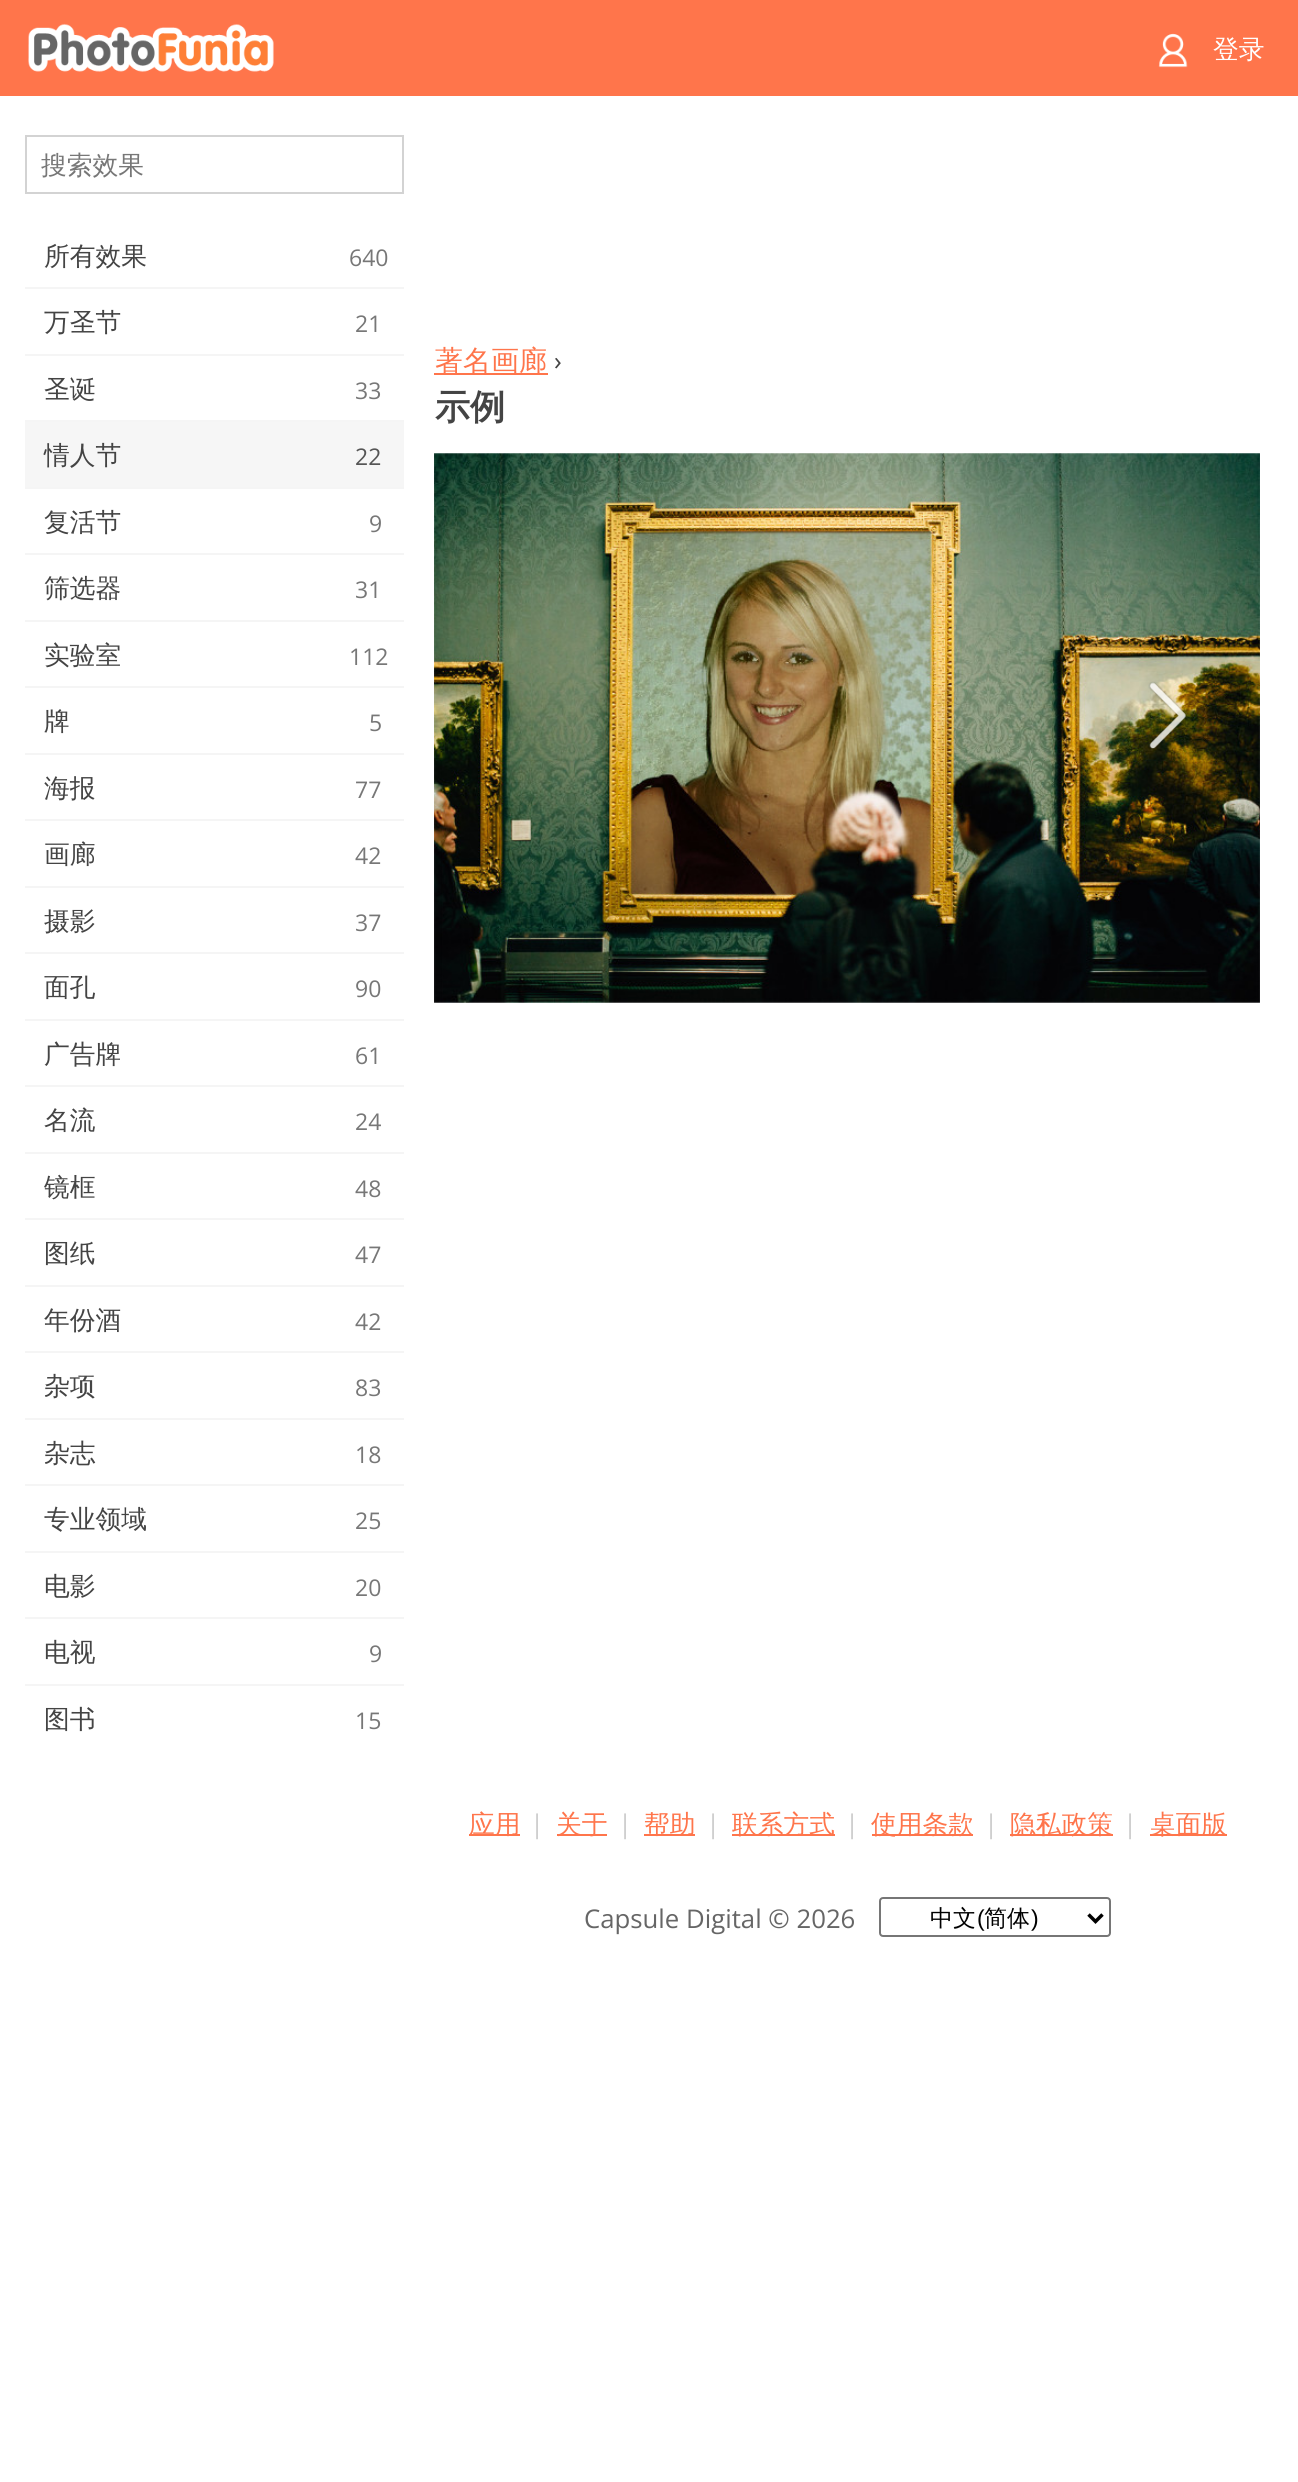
import math
import cairo


def use_color(cr, r, g, b):
  cr.set_source_rgb(r / 255, g / 255, b / 255)

def text(cr, x, y, s, family, size, color, bold=False, italic=False):
  cr.select_font_face(family, cairo.FONT_SLANT_ITALIC if italic else cairo.FONT_SLANT_NORMAL, cairo.FONT_WEIGHT_BOLD if bold else cairo.FONT_WEIGHT_NORMAL)
  cr.set_font_size(size)
  use_color(cr, *color)
  cr.move_to(x, y)
  cr.show_text(s)

def box(cr, x, y, w, h, *color):
  use_color(cr, *color)
  cr.rectangle(x, y, w, h)
  cr.fill()

def round_rect(cr, x, y, w, h, r):
  cr.new_sub_path()
  for i, (u, v) in enumerate([(x + w - r, y + h - r), (x + r, y + h - r), (x + r, y + r), (x + w - r, y + r)]):
    cr.arc(u, v, r, i * math.pi / 2, (i + 1) * math.pi / 2)
  cr.close_path()

def picture(cr, path, x, y, w, h):
  cr.save()
  cr.set_source_surface(cairo.ImageSurface.create_from_png(path), x, y)
  cr.rectangle(x, y, w, h)
  cr.fill()
  cr.restore()

def draw(cr):
  use_color(cr, 255, 255, 255)
  cr.paint()
  box(cr, 0, 0, 1298, 96, 255, 117, 75)
  picture(cr, "img_01.png", 28, 23, 246, 49)
  picture(cr, "img_02.png", 1158, 33, 30, 35)
  cr.rectangle(26, 136, 377, 57)
  use_color(cr, 211, 211, 211)
  cr.stroke()
  box(cr, 25, 287, 379, 2, 245, 245, 245)
  box(cr, 25, 354, 379, 2, 245, 245, 245)
  box(cr, 25, 420, 379, 2, 245, 245, 245)
  box(cr, 25, 422, 379, 65, 246, 246, 246)
  box(cr, 25, 487, 379, 2, 245, 245, 245)
  box(cr, 25, 553, 379, 2, 245, 245, 245)
  box(cr, 25, 620, 379, 2, 245, 245, 245)
  box(cr, 25, 686, 379, 2, 245, 245, 245)
  box(cr, 25, 753, 379, 2, 245, 245, 245)
  box(cr, 25, 819, 379, 2, 245, 245, 245)
  box(cr, 25, 886, 379, 2, 245, 245, 245)
  box(cr, 25, 952, 379, 2, 245, 245, 245)
  box(cr, 25, 1019, 379, 2, 245, 245, 245)
  box(cr, 25, 1085, 379, 2, 245, 245, 245)
  box(cr, 25, 1152, 379, 2, 245, 245, 245)
  box(cr, 25, 1218, 379, 2, 245, 245, 245)
  box(cr, 25, 1285, 379, 2, 245, 245, 245)
  box(cr, 25, 1351, 379, 2, 245, 245, 245)
  box(cr, 25, 1418, 379, 2, 245, 245, 245)
  box(cr, 25, 1484, 379, 2, 245, 245, 245)
  box(cr, 25, 1551, 379, 2, 245, 245, 245)
  box(cr, 25, 1617, 379, 2, 245, 245, 245)
  box(cr, 25, 1684, 379, 2, 245, 245, 245)
  box(cr, 434, 373, 114, 2, 255, 117, 75)
  picture(cr, "img_03.png", 434, 453, 826, 550)
  picture(cr, "img_04.png", 1148, 681, 39, 68)
  box(cr, 469, 1834, 51, 2, 255, 117, 75)
  box(cr, 557, 1834, 50, 2, 255, 117, 75)
  box(cr, 644, 1834, 51, 2, 255, 117, 75)
  box(cr, 732, 1834, 103, 2, 255, 117, 75)
  box(cr, 872, 1834, 101, 2, 255, 117, 75)
  box(cr, 1010, 1834, 103, 2, 255, 117, 75)
  box(cr, 1150, 1834, 77, 2, 255, 117, 75)
  round_rect(cr, 880, 1898, 230, 38, 3)
  use_color(cr, 118, 118, 118)
  cr.stroke()
  cr.new_path()
  cr.move_to(1088.5, 1914.5)
  cr.line_to(1095.5, 1921.5)
  cr.line_to(1102.5, 1914.5)
  use_color(cr, 0, 0, 0)
  cr.set_line_width(3.5)
  cr.stroke()
  text(cr, 1213, 58, "登录", "WenQuanYi Zen Hei Medium", 25.75, (255, 255, 255))
  text(cr, 41, 174, "搜索效果", "WenQuanYi Zen Hei Medium", 25.75, (119, 119, 119))
  text(cr, 44, 265, "所有效果", "WenQuanYi Zen Hei Medium", 25.75, (68, 68, 68))
  text(cr, 349, 266, "640", "Open Sans", 23, (119, 119, 119))
  text(cr, 44, 331, "万圣节", "WenQuanYi Zen Hei Medium", 25.75, (68, 68, 68))
  text(cr, 355, 332, "21", "Open Sans", 23, (119, 119, 119))
  text(cr, 44, 398, "圣诞", "WenQuanYi Zen Hei Medium", 25.75, (68, 68, 68))
  text(cr, 355, 399, "33", "Open Sans", 23, (119, 119, 119))
  text(cr, 44, 464, "情人节", "WenQuanYi Zen Hei Medium", 25.75, (68, 68, 68))
  text(cr, 355, 465, "22", "Open Sans", 23, (85, 85, 85))
  text(cr, 44, 531, "复活节", "WenQuanYi Zen Hei Medium", 25.75, (68, 68, 68))
  text(cr, 369, 532, "9", "Open Sans", 23, (119, 119, 119))
  text(cr, 44, 597, "筛选器", "WenQuanYi Zen Hei Medium", 25.75, (68, 68, 68))
  text(cr, 355, 598, "31", "Open Sans", 23, (119, 119, 119))
  text(cr, 44, 664, "实验室", "WenQuanYi Zen Hei Medium", 25.75, (68, 68, 68))
  text(cr, 349, 665, "112", "Open Sans", 23, (119, 119, 119))
  text(cr, 44, 730, "牌", "WenQuanYi Zen Hei Medium", 25.75, (68, 68, 68))
  text(cr, 369, 731, "5", "Open Sans", 23, (119, 119, 119))
  text(cr, 44, 797, "海报", "WenQuanYi Zen Hei Medium", 25.75, (68, 68, 68))
  text(cr, 355, 798, "77", "Open Sans", 23, (119, 119, 119))
  text(cr, 44, 863, "画廊", "WenQuanYi Zen Hei Medium", 25.75, (68, 68, 68))
  text(cr, 355, 864, "42", "Open Sans", 23, (119, 119, 119))
  text(cr, 44, 930, "摄影", "WenQuanYi Zen Hei Medium", 25.75, (68, 68, 68))
  text(cr, 355, 931, "37", "Open Sans", 23, (119, 119, 119))
  text(cr, 44, 996, "面孔", "WenQuanYi Zen Hei Medium", 25.75, (68, 68, 68))
  text(cr, 355, 997, "90", "Open Sans", 23, (119, 119, 119))
  text(cr, 44, 1063, "广告牌", "WenQuanYi Zen Hei Medium", 25.75, (68, 68, 68))
  text(cr, 355, 1064, "61", "Open Sans", 23, (119, 119, 119))
  text(cr, 44, 1129, "名流", "WenQuanYi Zen Hei Medium", 25.75, (68, 68, 68))
  text(cr, 355, 1130, "24", "Open Sans", 23, (119, 119, 119))
  text(cr, 44, 1196, "镜框", "WenQuanYi Zen Hei Medium", 25.75, (68, 68, 68))
  text(cr, 355, 1197, "48", "Open Sans", 23, (119, 119, 119))
  text(cr, 44, 1262, "图纸", "WenQuanYi Zen Hei Medium", 25.75, (68, 68, 68))
  text(cr, 355, 1263, "47", "Open Sans", 23, (119, 119, 119))
  text(cr, 44, 1329, "年份酒", "WenQuanYi Zen Hei Medium", 25.75, (68, 68, 68))
  text(cr, 355, 1330, "42", "Open Sans", 23, (119, 119, 119))
  text(cr, 44, 1395, "杂项", "WenQuanYi Zen Hei Medium", 25.75, (68, 68, 68))
  text(cr, 355, 1396, "83", "Open Sans", 23, (119, 119, 119))
  text(cr, 44, 1462, "杂志", "WenQuanYi Zen Hei Medium", 25.75, (68, 68, 68))
  text(cr, 355, 1463, "18", "Open Sans", 23, (119, 119, 119))
  text(cr, 44, 1528, "专业领域", "WenQuanYi Zen Hei Medium", 25.75, (68, 68, 68))
  text(cr, 355, 1529, "25", "Open Sans", 23, (119, 119, 119))
  text(cr, 44, 1595, "电影", "WenQuanYi Zen Hei Medium", 25.75, (68, 68, 68))
  text(cr, 355, 1596, "20", "Open Sans", 23, (119, 119, 119))
  text(cr, 44, 1661, "电视", "WenQuanYi Zen Hei Medium", 25.75, (68, 68, 68))
  text(cr, 369, 1662, "9", "Open Sans", 23, (119, 119, 119))
  text(cr, 44, 1728, "图书", "WenQuanYi Zen Hei Medium", 25.75, (68, 68, 68))
  text(cr, 355, 1729, "15", "Open Sans", 23, (119, 119, 119))
  text(cr, 435, 370, "著名画廊", "WenQuanYi Zen Hei Medium", 28, (255, 117, 75))
  text(cr, 554, 370, "›", "Open Sans", 25.75, (68, 68, 68))
  text(cr, 435, 419, "示例", "WenQuanYi Zen Hei", 35, (68, 68, 68), bold=True)
  text(cr, 469, 1833, "应用", "WenQuanYi Zen Hei Medium", 25.75, (255, 117, 75))
  text(cr, 530, 1833, "|", "Open Sans", 25.75, (204, 204, 204))
  text(cr, 556, 1833, "关于", "WenQuanYi Zen Hei Medium", 25.75, (255, 117, 75))
  text(cr, 618, 1833, "|", "Open Sans", 25.75, (204, 204, 204))
  text(cr, 644, 1833, "帮助", "WenQuanYi Zen Hei Medium", 25.75, (255, 117, 75))
  text(cr, 706, 1833, "|", "Open Sans", 25.75, (204, 204, 204))
  text(cr, 732, 1833, "联系方式", "WenQuanYi Zen Hei Medium", 25.75, (255, 117, 75))
  text(cr, 845, 1833, "|", "Open Sans", 25.75, (204, 204, 204))
  text(cr, 871, 1833, "使用条款", "WenQuanYi Zen Hei Medium", 25.75, (255, 117, 75))
  text(cr, 984, 1833, "|", "Open Sans", 25.75, (204, 204, 204))
  text(cr, 1010, 1833, "隐私政策", "WenQuanYi Zen Hei Medium", 25.75, (255, 117, 75))
  text(cr, 1123, 1833, "|", "Open Sans", 25.75, (204, 204, 204))
  text(cr, 1150, 1833, "桌面版", "WenQuanYi Zen Hei Medium", 25.75, (255, 117, 75))
  text(cr, 584, 1928, "Capsule Digital © 2026", "Open Sans", 25.75, (102, 102, 102))
  text(cr, 930, 1926, "中文", "WenQuanYi Zen Hei Medium", 23, (0, 0, 0))
  text(cr, 977, 1926, "(", "Liberation Sans", 23, (0, 0, 0))
  text(cr, 984, 1926, "简体", "WenQuanYi Zen Hei Medium", 23, (0, 0, 0))
  text(cr, 1031, 1926, ")", "Liberation Sans", 23, (0, 0, 0))


surface = cairo.ImageSurface(cairo.FORMAT_RGB24, 1298, 2482)
cr = cairo.Context(surface)
options = cairo.FontOptions()
options.set_hint_metrics(cairo.HINT_METRICS_OFF)
options.set_hint_style(cairo.HINT_STYLE_NONE)
cr.set_font_options(options)
cr.set_miter_limit(4)
draw(cr)
surface.write_to_png("out.png")
